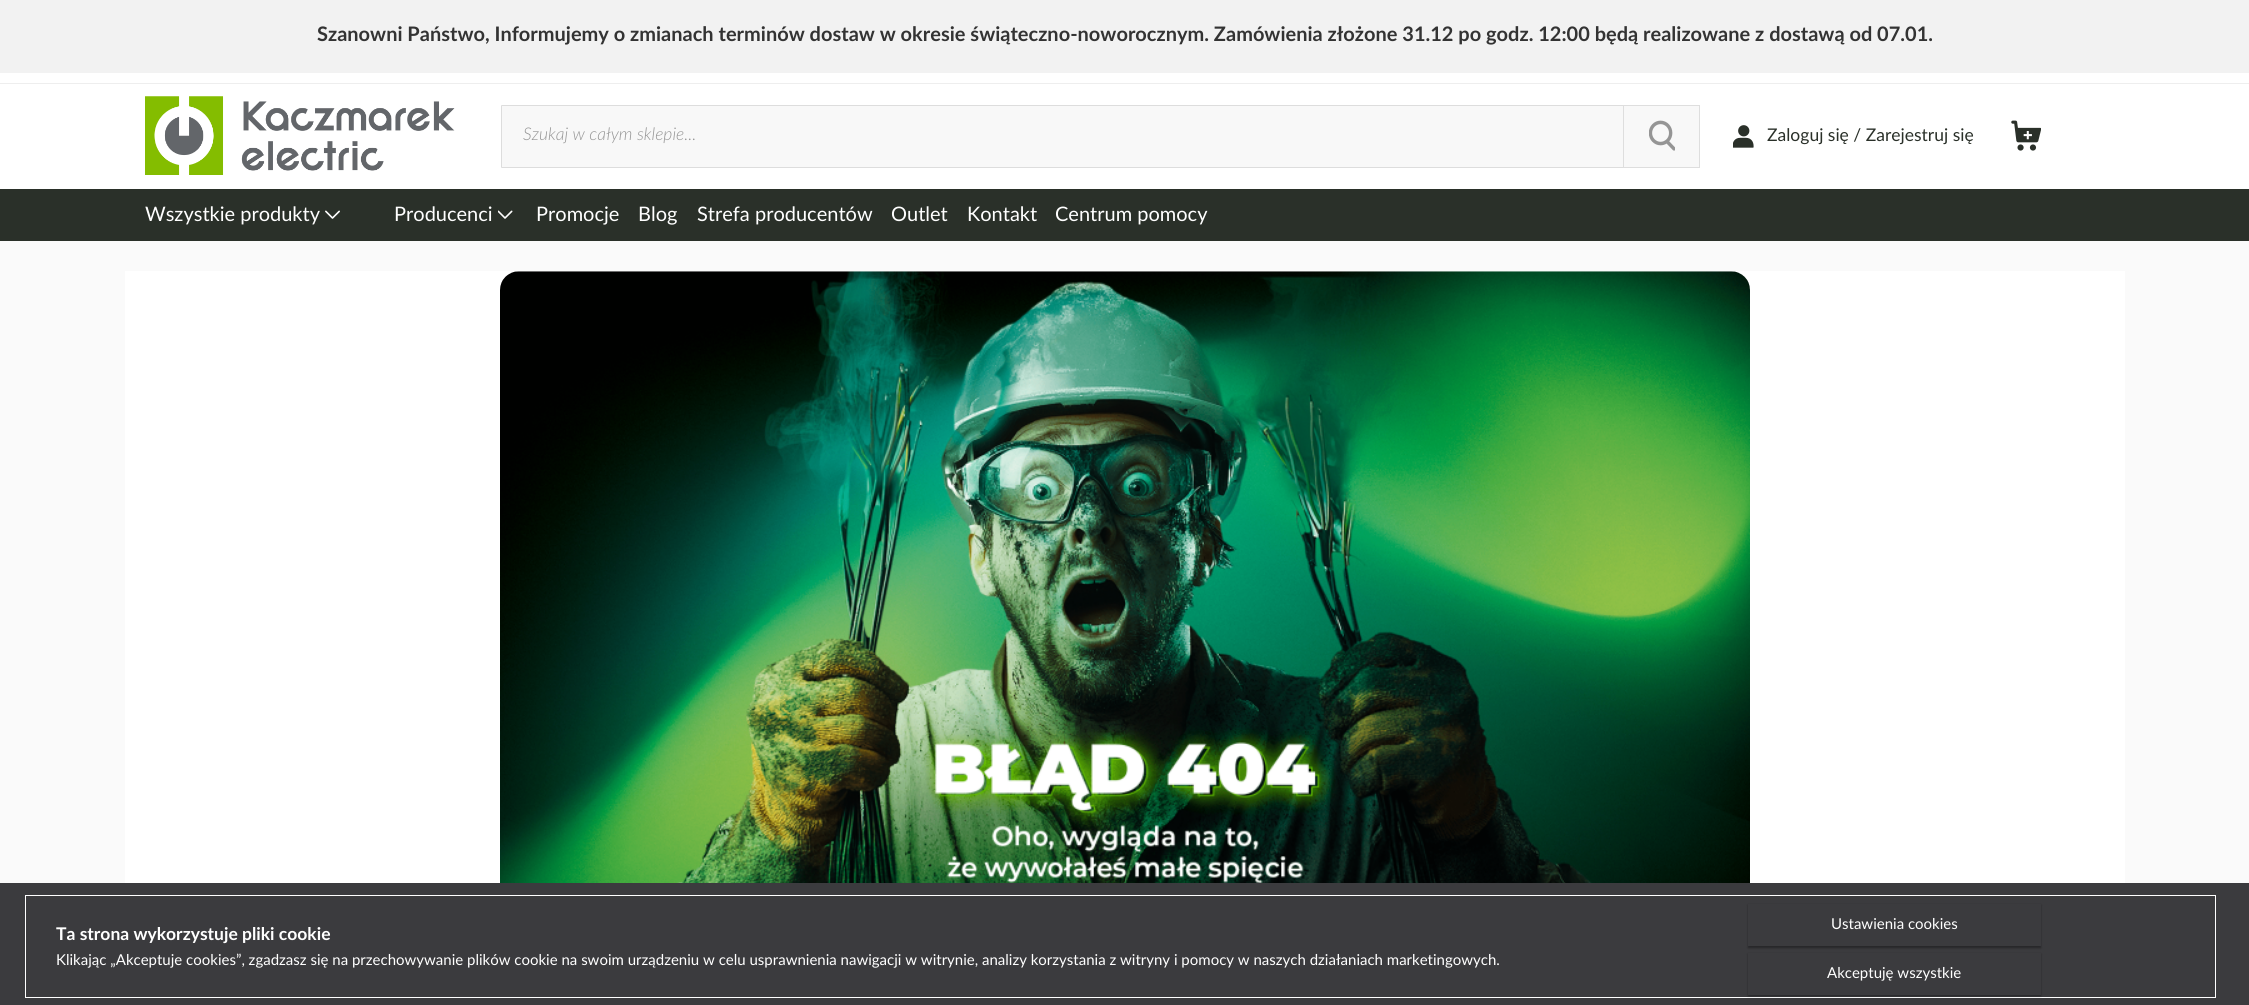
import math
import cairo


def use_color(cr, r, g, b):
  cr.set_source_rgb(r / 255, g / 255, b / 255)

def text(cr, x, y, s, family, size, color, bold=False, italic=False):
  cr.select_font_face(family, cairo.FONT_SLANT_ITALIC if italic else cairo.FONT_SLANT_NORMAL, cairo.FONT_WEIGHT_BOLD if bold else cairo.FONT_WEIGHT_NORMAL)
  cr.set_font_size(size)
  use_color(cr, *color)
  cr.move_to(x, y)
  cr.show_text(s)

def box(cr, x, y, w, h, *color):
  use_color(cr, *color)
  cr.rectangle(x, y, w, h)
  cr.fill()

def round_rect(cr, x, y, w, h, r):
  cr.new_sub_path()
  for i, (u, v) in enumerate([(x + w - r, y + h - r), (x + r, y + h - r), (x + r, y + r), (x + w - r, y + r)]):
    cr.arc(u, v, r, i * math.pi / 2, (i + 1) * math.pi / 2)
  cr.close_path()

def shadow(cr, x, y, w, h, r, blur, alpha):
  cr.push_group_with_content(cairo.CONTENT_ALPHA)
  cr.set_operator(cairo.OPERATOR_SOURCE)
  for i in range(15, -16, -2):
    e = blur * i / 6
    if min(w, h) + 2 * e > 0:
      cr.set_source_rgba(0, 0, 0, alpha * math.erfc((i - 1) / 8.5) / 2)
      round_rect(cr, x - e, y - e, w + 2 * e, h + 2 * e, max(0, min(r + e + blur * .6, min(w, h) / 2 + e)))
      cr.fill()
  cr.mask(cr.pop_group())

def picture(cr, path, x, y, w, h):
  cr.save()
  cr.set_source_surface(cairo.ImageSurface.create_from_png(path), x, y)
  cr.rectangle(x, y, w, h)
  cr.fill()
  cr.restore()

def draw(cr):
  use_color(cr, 250, 250, 250)
  cr.paint()
  box(cr, 0, 0, 2249, 73, 242, 242, 242)
  box(cr, 0, 73, 2249, 116, 255, 255, 255)
  box(cr, 0, 83, 2249, 1, 238, 238, 238)
  picture(cr, "img_01.png", 145, 96, 310, 79)
  box(cr, 501, 105, 1122, 63, 248, 248, 248)
  round_rect(cr, 501.5, 105.5, 1198, 62, 0.5)
  use_color(cr, 221, 221, 221)
  cr.set_line_width(1)
  cr.stroke()
  use_color(cr, 248, 248, 248)
  cr.rectangle(1623.5, 105.5, 76, 62)
  cr.fill_preserve()
  use_color(cr, 222, 222, 222)
  cr.stroke()
  picture(cr, "img_02.png", 1649, 120, 26, 31)
  picture(cr, "img_03.png", 1733, 125, 21, 23)
  picture(cr, "img_04.png", 2011, 120, 30, 31)
  box(cr, 0, 189, 2249, 52, 42, 48, 41)
  picture(cr, "img_05.png", 325, 210, 15, 9)
  picture(cr, "img_06.png", 498, 210, 15, 9)
  box(cr, 125, 271, 2000, 612, 255, 255, 255)
  picture(cr, "img_07.png", 500, 271, 1250, 612)
  box(cr, 0, 883, 2249, 122, 59, 59, 62)
  cr.rectangle(25.5, 895.5, 2190, 102)
  use_color(cr, 255, 255, 255)
  cr.stroke()
  cr.save()
  cr.set_fill_rule(cairo.FILL_RULE_EVEN_ODD)
  cr.new_path()
  cr.move_to(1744, 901)
  cr.line_to(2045, 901)
  cr.line_to(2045, 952)
  cr.line_to(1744, 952)
  cr.close_path()
  cr.move_to(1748, 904)
  cr.line_to(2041, 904)
  cr.line_to(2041, 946)
  cr.line_to(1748, 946)
  cr.close_path()
  cr.clip()
  use_color(cr, 0, 0, 0)
  shadow(cr, 1748, 905, 293, 43, 0, 1, 0.35)
  cr.restore()
  cr.save()
  cr.set_fill_rule(cairo.FILL_RULE_EVEN_ODD)
  cr.new_path()
  cr.move_to(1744, 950)
  cr.line_to(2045, 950)
  cr.line_to(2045, 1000)
  cr.line_to(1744, 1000)
  cr.close_path()
  cr.move_to(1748, 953)
  cr.line_to(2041, 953)
  cr.line_to(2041, 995)
  cr.line_to(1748, 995)
  cr.close_path()
  cr.clip()
  use_color(cr, 0, 0, 0)
  shadow(cr, 1748, 954, 293, 42, 0, 1, 0.35)
  cr.restore()
  text(cr, 317, 41, "Szanowni Państwo, Informujemy o zmianach terminów dostaw w okresie świąteczno-noworocznym. Zamówienia złożone 31.12 po godz. 12:00 będą realizowane z dostawą od 07.01.", "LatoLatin", 20, (51, 51, 51), bold=True)
  text(cr, 523, 140, "Szukaj w całym sklepie...", "LatoLatin Light", 17.5, (149, 149, 149), italic=True)
  text(cr, 1767, 141, "Zaloguj się / Zarejestruj się", "LatoLatin", 17.5, (42, 48, 41))
  text(cr, 145, 221, "Wszystkie produkty", "LatoLatin", 20, (255, 255, 255))
  text(cr, 394, 221, "Producenci", "LatoLatin", 20, (255, 255, 255))
  text(cr, 536, 221, "Promocje", "LatoLatin", 20, (255, 255, 255))
  text(cr, 638, 221, "Blog", "LatoLatin", 20, (255, 255, 255))
  text(cr, 697, 221, "Strefa producentów", "LatoLatin", 20, (255, 255, 255))
  text(cr, 891, 221, "Outlet", "LatoLatin", 20, (255, 255, 255))
  text(cr, 967, 221, "Kontakt", "LatoLatin", 20, (255, 255, 255))
  text(cr, 1055, 221, "Centrum pomocy", "LatoLatin", 20, (255, 255, 255))
  text(cr, 56, 940, "Ta strona wykorzystuje pliki cookie", "LatoLatin", 17.5, (255, 255, 255), bold=True)
  text(cr, 56, 965, "Klikając „Akceptuje cookies”, zgadzasz się na przechowywanie plików cookie na swoim urządzeniu w celu usprawnienia nawigacji w witrynie, analizy korzystania z witryny i pomocy w naszych działaniach marketingowych.", "LatoLatin", 15, (255, 255, 255))
  text(cr, 1831, 929, "Ustawienia cookies", "LatoLatin", 15, (255, 255, 255))
  text(cr, 1827, 978, "Akceptuję wszystkie", "LatoLatin", 15, (255, 255, 255))


surface = cairo.ImageSurface(cairo.FORMAT_RGB24, 2249, 1005)
cr = cairo.Context(surface)
options = cairo.FontOptions()
options.set_hint_metrics(cairo.HINT_METRICS_OFF)
options.set_hint_style(cairo.HINT_STYLE_NONE)
cr.set_font_options(options)
cr.set_miter_limit(4)
draw(cr)
surface.write_to_png("out.png")
